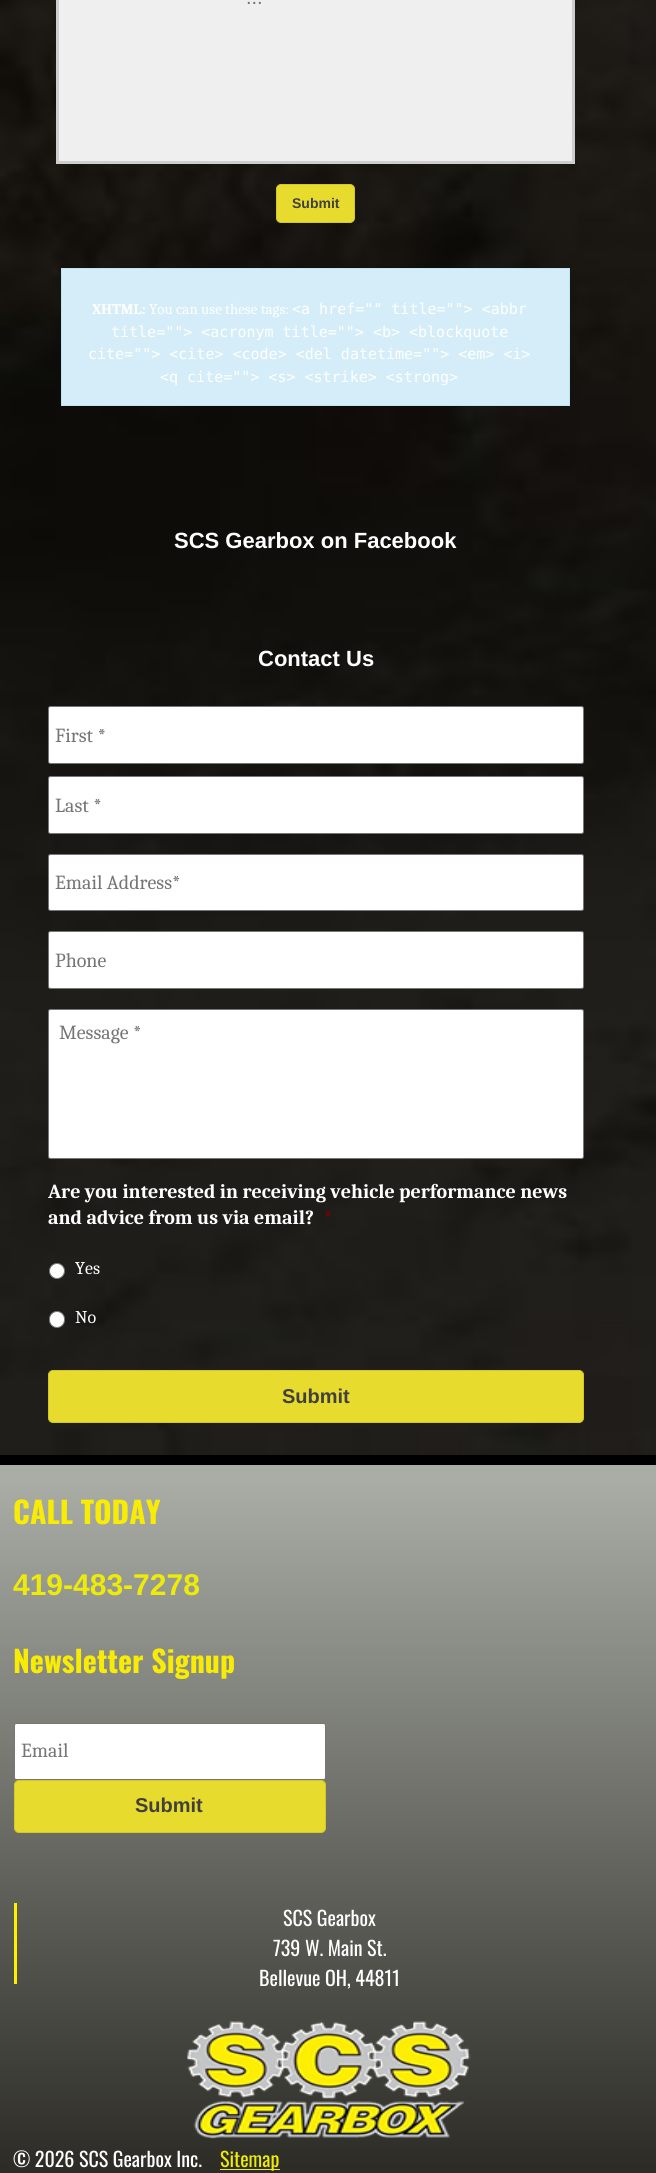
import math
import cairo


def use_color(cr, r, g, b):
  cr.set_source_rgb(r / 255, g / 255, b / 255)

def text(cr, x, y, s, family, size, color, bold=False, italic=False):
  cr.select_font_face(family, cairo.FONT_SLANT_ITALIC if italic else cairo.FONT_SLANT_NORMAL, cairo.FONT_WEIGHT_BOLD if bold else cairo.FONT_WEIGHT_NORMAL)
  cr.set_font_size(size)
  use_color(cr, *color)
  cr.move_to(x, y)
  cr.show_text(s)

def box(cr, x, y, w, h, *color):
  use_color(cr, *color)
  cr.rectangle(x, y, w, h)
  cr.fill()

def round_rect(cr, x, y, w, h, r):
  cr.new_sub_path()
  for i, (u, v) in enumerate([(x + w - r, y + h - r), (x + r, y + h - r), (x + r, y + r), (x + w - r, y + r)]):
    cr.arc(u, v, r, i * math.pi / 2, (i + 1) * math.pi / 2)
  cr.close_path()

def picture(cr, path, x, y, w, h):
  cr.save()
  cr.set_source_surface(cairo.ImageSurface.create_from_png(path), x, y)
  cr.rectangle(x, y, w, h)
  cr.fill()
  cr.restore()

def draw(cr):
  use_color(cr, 255, 255, 255)
  cr.paint()
  picture(cr, "img_01.png", 0, 0, 656, 1455)
  use_color(cr, 239, 239, 239)
  cr.rectangle(57.5, -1.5, 516, 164)
  cr.fill_preserve()
  use_color(cr, 206, 206, 206)
  cr.set_line_width(3)
  cr.stroke()
  use_color(cr, 231, 219, 45)
  round_rect(cr, 276.5, 184.5, 78, 38, 4.5)
  cr.fill_preserve()
  use_color(cr, 211, 200, 40)
  cr.set_line_width(1)
  cr.stroke()
  use_color(cr, 213, 237, 248)
  cr.rectangle(61.5, 268.5, 508, 137)
  cr.fill_preserve()
  use_color(cr, 191, 228, 244)
  cr.stroke()
  use_color(cr, 255, 255, 255)
  round_rect(cr, 48.5, 706.5, 535, 57, 2)
  cr.fill_preserve()
  use_color(cr, 118, 118, 118)
  cr.stroke()
  use_color(cr, 255, 255, 255)
  round_rect(cr, 48.5, 776.5, 535, 57, 2)
  cr.fill_preserve()
  use_color(cr, 118, 118, 118)
  cr.stroke()
  use_color(cr, 255, 255, 255)
  round_rect(cr, 48.5, 854.5, 535, 56, 2)
  cr.fill_preserve()
  use_color(cr, 118, 118, 118)
  cr.stroke()
  use_color(cr, 255, 255, 255)
  round_rect(cr, 48.5, 931.5, 535, 57, 2)
  cr.fill_preserve()
  use_color(cr, 118, 118, 118)
  cr.stroke()
  use_color(cr, 255, 255, 255)
  round_rect(cr, 48.5, 1009.5, 535, 149, 2)
  cr.fill_preserve()
  use_color(cr, 118, 118, 118)
  cr.stroke()
  use_color(cr, 255, 255, 255)
  cr.arc(57, 1271, 7.5, 0, 2 * math.pi)
  cr.fill_preserve()
  use_color(cr, 118, 118, 118)
  cr.stroke()
  use_color(cr, 255, 255, 255)
  round_rect(cr, 49.5, 1311.5, 15, 16, 7.5)
  cr.fill_preserve()
  use_color(cr, 118, 118, 118)
  cr.stroke()
  use_color(cr, 231, 219, 45)
  round_rect(cr, 48.5, 1370.5, 535, 52, 4.5)
  cr.fill_preserve()
  use_color(cr, 211, 200, 40)
  cr.stroke()
  gradient = cairo.LinearGradient(328, 1465, 328, 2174)
  gradient.add_color_stop_rgba(0.02, 0.663, 0.678, 0.647, 1)
  gradient.add_color_stop_rgba(0.99, 0.176, 0.173, 0.153, 1)
  cr.set_source(gradient)
  cr.rectangle(0, 1465, 656, 708)
  cr.fill()
  box(cr, 0, 1455, 656, 10, 0, 0, 0)
  use_color(cr, 255, 255, 255)
  round_rect(cr, 14.5, 1723.5, 311, 56, 2)
  cr.fill_preserve()
  use_color(cr, 118, 118, 118)
  cr.stroke()
  use_color(cr, 231, 219, 45)
  round_rect(cr, 14.5, 1780.5, 311, 52, 4.5)
  cr.fill_preserve()
  use_color(cr, 211, 200, 40)
  cr.stroke()
  box(cr, 14, 1903, 3, 81, 255, 240, 0)
  picture(cr, "img_02.png", 187, 2021, 284, 118)
  box(cr, 220, 2169, 60, 1, 239, 235, 8)
  text(cr, 246, 4, "...", "Liberation Sans", 20, (117, 117, 117))
  text(cr, 292, 208, "Submit", "Liberation Sans", 14, (66, 64, 63), bold=True)
  text(cr, 92, 314, "XHTML:", "Caladea", 15, (255, 255, 255), bold=True)
  text(cr, 149, 314, "You can use these tags:", "Caladea", 15, (255, 255, 255))
  text(cr, 292, 314, "<a href=\"\" title=\"\"> <abbr", "DejaVu Sans Mono", 15, (255, 255, 255))
  text(cr, 111, 337, "title=\"\"> <acronym title=\"\"> <b> <blockquote", "DejaVu Sans Mono", 15, (255, 255, 255))
  text(cr, 88, 359, "cite=\"\"> <cite> <code> <del datetime=\"\"> <em> <i>", "DejaVu Sans Mono", 15, (255, 255, 255))
  text(cr, 160, 382, "<q cite=\"\"> <s> <strike> <strong>", "DejaVu Sans Mono", 15, (255, 255, 255))
  text(cr, 174, 548, "SCS Gearbox on Facebook", "Liberation Sans", 22, (255, 255, 255), bold=True)
  text(cr, 258, 666, "Contact Us", "Liberation Sans", 22, (255, 255, 255), bold=True)
  text(cr, 55, 742, "First *", "Caladea", 20, (117, 117, 117))
  text(cr, 55, 812, "Last *", "Caladea", 20, (117, 117, 117))
  text(cr, 55, 889, "Email Address*", "Caladea", 20, (117, 117, 117))
  text(cr, 55, 967, "Phone", "Caladea", 20, (117, 117, 117))
  text(cr, 59, 1039, "Message *", "Caladea", 20, (117, 117, 117))
  text(cr, 48, 1198, "Are you interested in receiving vehicle performance news", "Caladea", 20, (255, 255, 255), bold=True)
  text(cr, 48, 1224, "and advice from us via email?", "Caladea", 20, (255, 255, 255), bold=True)
  text(cr, 324, 1224, "*", "Caladea", 20, (121, 0, 0), bold=True)
  text(cr, 75, 1274, "Yes", "Caladea", 18, (255, 255, 255))
  text(cr, 75, 1323, "No", "Caladea", 18, (255, 255, 255))
  text(cr, 282, 1403, "Submit", "Liberation Sans", 20, (66, 64, 63), bold=True)
  text(cr, 13, 1524, "CALL TODAY", "Oswald", 30, (248, 236, 4), bold=True)
  text(cr, 13, 1595, "419-483-7278", "Liberation Sans", 30, (239, 235, 8), bold=True)
  text(cr, 13, 1673, "Newsletter Signup", "Oswald", 30, (248, 236, 4), bold=True)
  text(cr, 21, 1757, "Email", "Caladea", 20, (117, 117, 117))
  text(cr, 135, 1812, "Submit", "Liberation Sans", 20, (66, 64, 63), bold=True)
  text(cr, 283, 1926, "SCS Gearbox", "Oswald", 20, (255, 255, 255))
  text(cr, 273, 1956, "739 W. Main St.", "Oswald", 20, (255, 255, 255))
  text(cr, 259, 1986, "Bellevue OH, 44811", "Oswald", 20, (255, 255, 255))
  text(cr, 13, 2167, "© 2026 SCS Gearbox Inc.", "Oswald", 20, (255, 255, 255))
  text(cr, 220, 2167, "Sitemap", "Oswald", 20, (239, 235, 8))


surface = cairo.ImageSurface(cairo.FORMAT_RGB24, 656, 2173)
cr = cairo.Context(surface)
options = cairo.FontOptions()
options.set_hint_metrics(cairo.HINT_METRICS_OFF)
options.set_hint_style(cairo.HINT_STYLE_NONE)
cr.set_font_options(options)
cr.set_miter_limit(4)
draw(cr)
surface.write_to_png("out.png")
